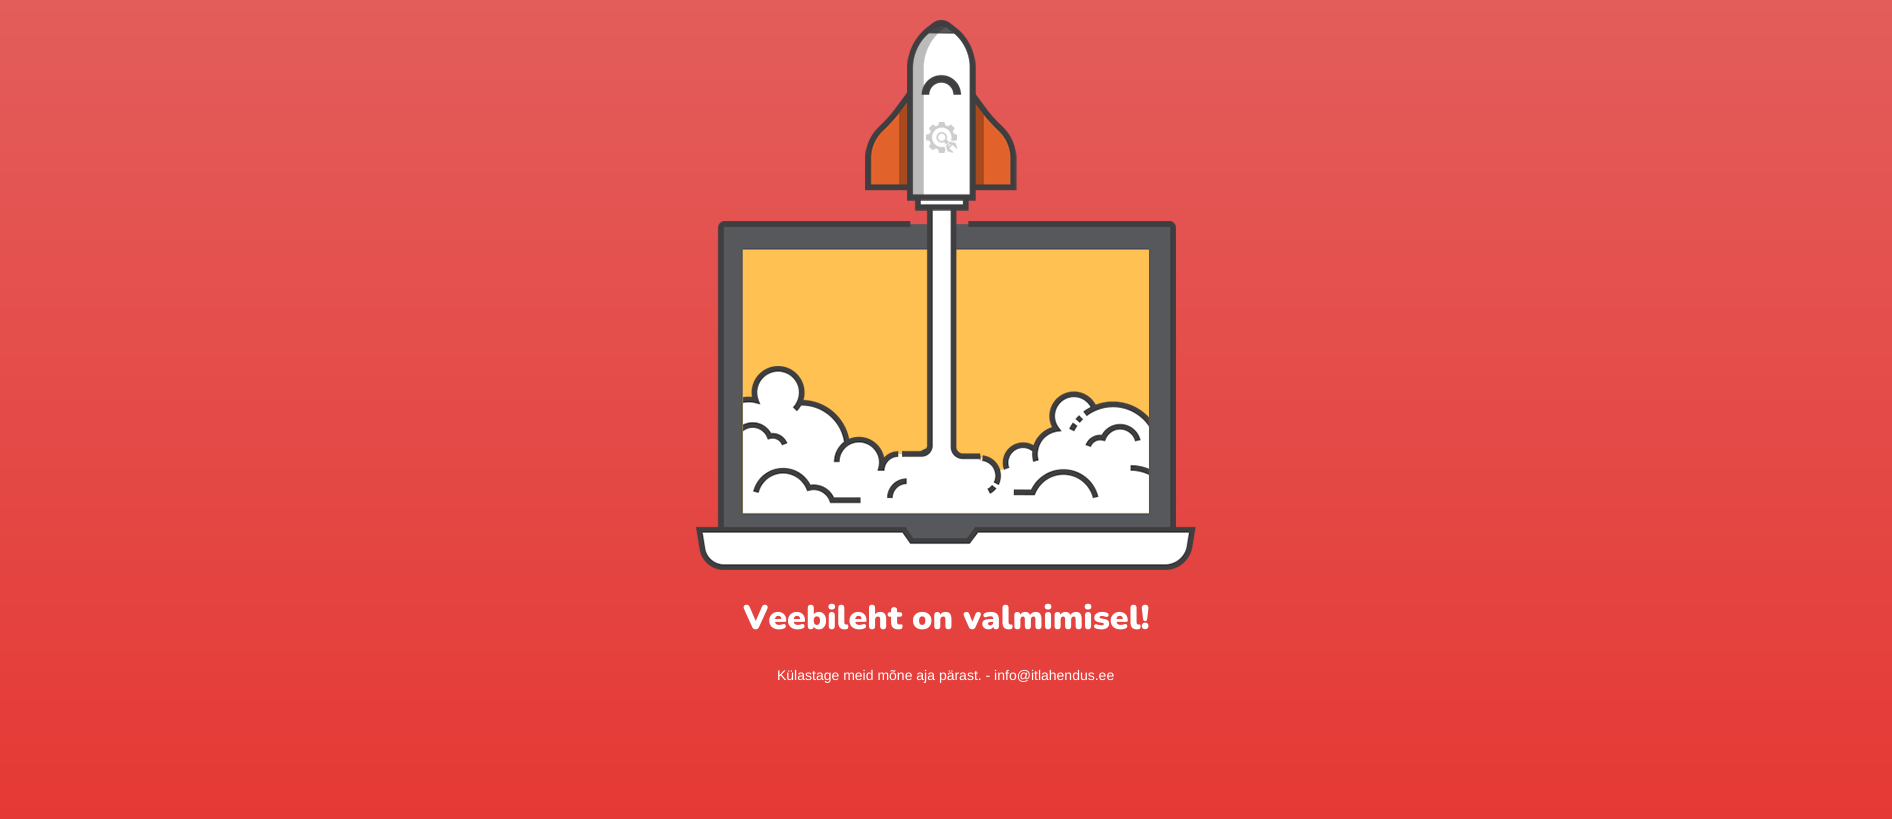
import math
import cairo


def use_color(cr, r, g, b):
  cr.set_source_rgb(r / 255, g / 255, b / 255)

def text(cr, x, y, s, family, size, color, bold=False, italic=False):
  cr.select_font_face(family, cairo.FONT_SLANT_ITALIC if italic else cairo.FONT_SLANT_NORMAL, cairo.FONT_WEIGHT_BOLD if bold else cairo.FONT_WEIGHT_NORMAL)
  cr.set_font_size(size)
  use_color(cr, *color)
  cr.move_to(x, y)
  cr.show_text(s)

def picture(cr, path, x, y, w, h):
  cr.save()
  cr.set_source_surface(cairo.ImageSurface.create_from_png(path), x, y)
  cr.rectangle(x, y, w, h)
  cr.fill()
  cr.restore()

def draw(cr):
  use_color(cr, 255, 255, 255)
  cr.paint()
  gradient = cairo.LinearGradient(946, 0, 946, 819)
  gradient.add_color_stop_rgba(0, 0.89, 0.365, 0.357, 1)
  gradient.add_color_stop_rgba(1, 0.898, 0.224, 0.208, 1)
  cr.set_source(gradient)
  cr.rectangle(0, 0, 1892, 819)
  cr.fill()
  picture(cr, "img_01.png", 696, 20, 500, 550)
  text(cr, 743, 629, "Veebileht on valmimisel!", "Nunito ExtraLight", 34, (254, 254, 254))
  text(cr, 777, 680, "Külastage meid mõne aja pärast. - info@itlahendus.ee", "Liberation Sans", 14, (254, 254, 254))


surface = cairo.ImageSurface(cairo.FORMAT_RGB24, 1892, 819)
cr = cairo.Context(surface)
options = cairo.FontOptions()
options.set_hint_metrics(cairo.HINT_METRICS_OFF)
options.set_hint_style(cairo.HINT_STYLE_NONE)
cr.set_font_options(options)
cr.set_miter_limit(4)
draw(cr)
surface.write_to_png("out.png")
